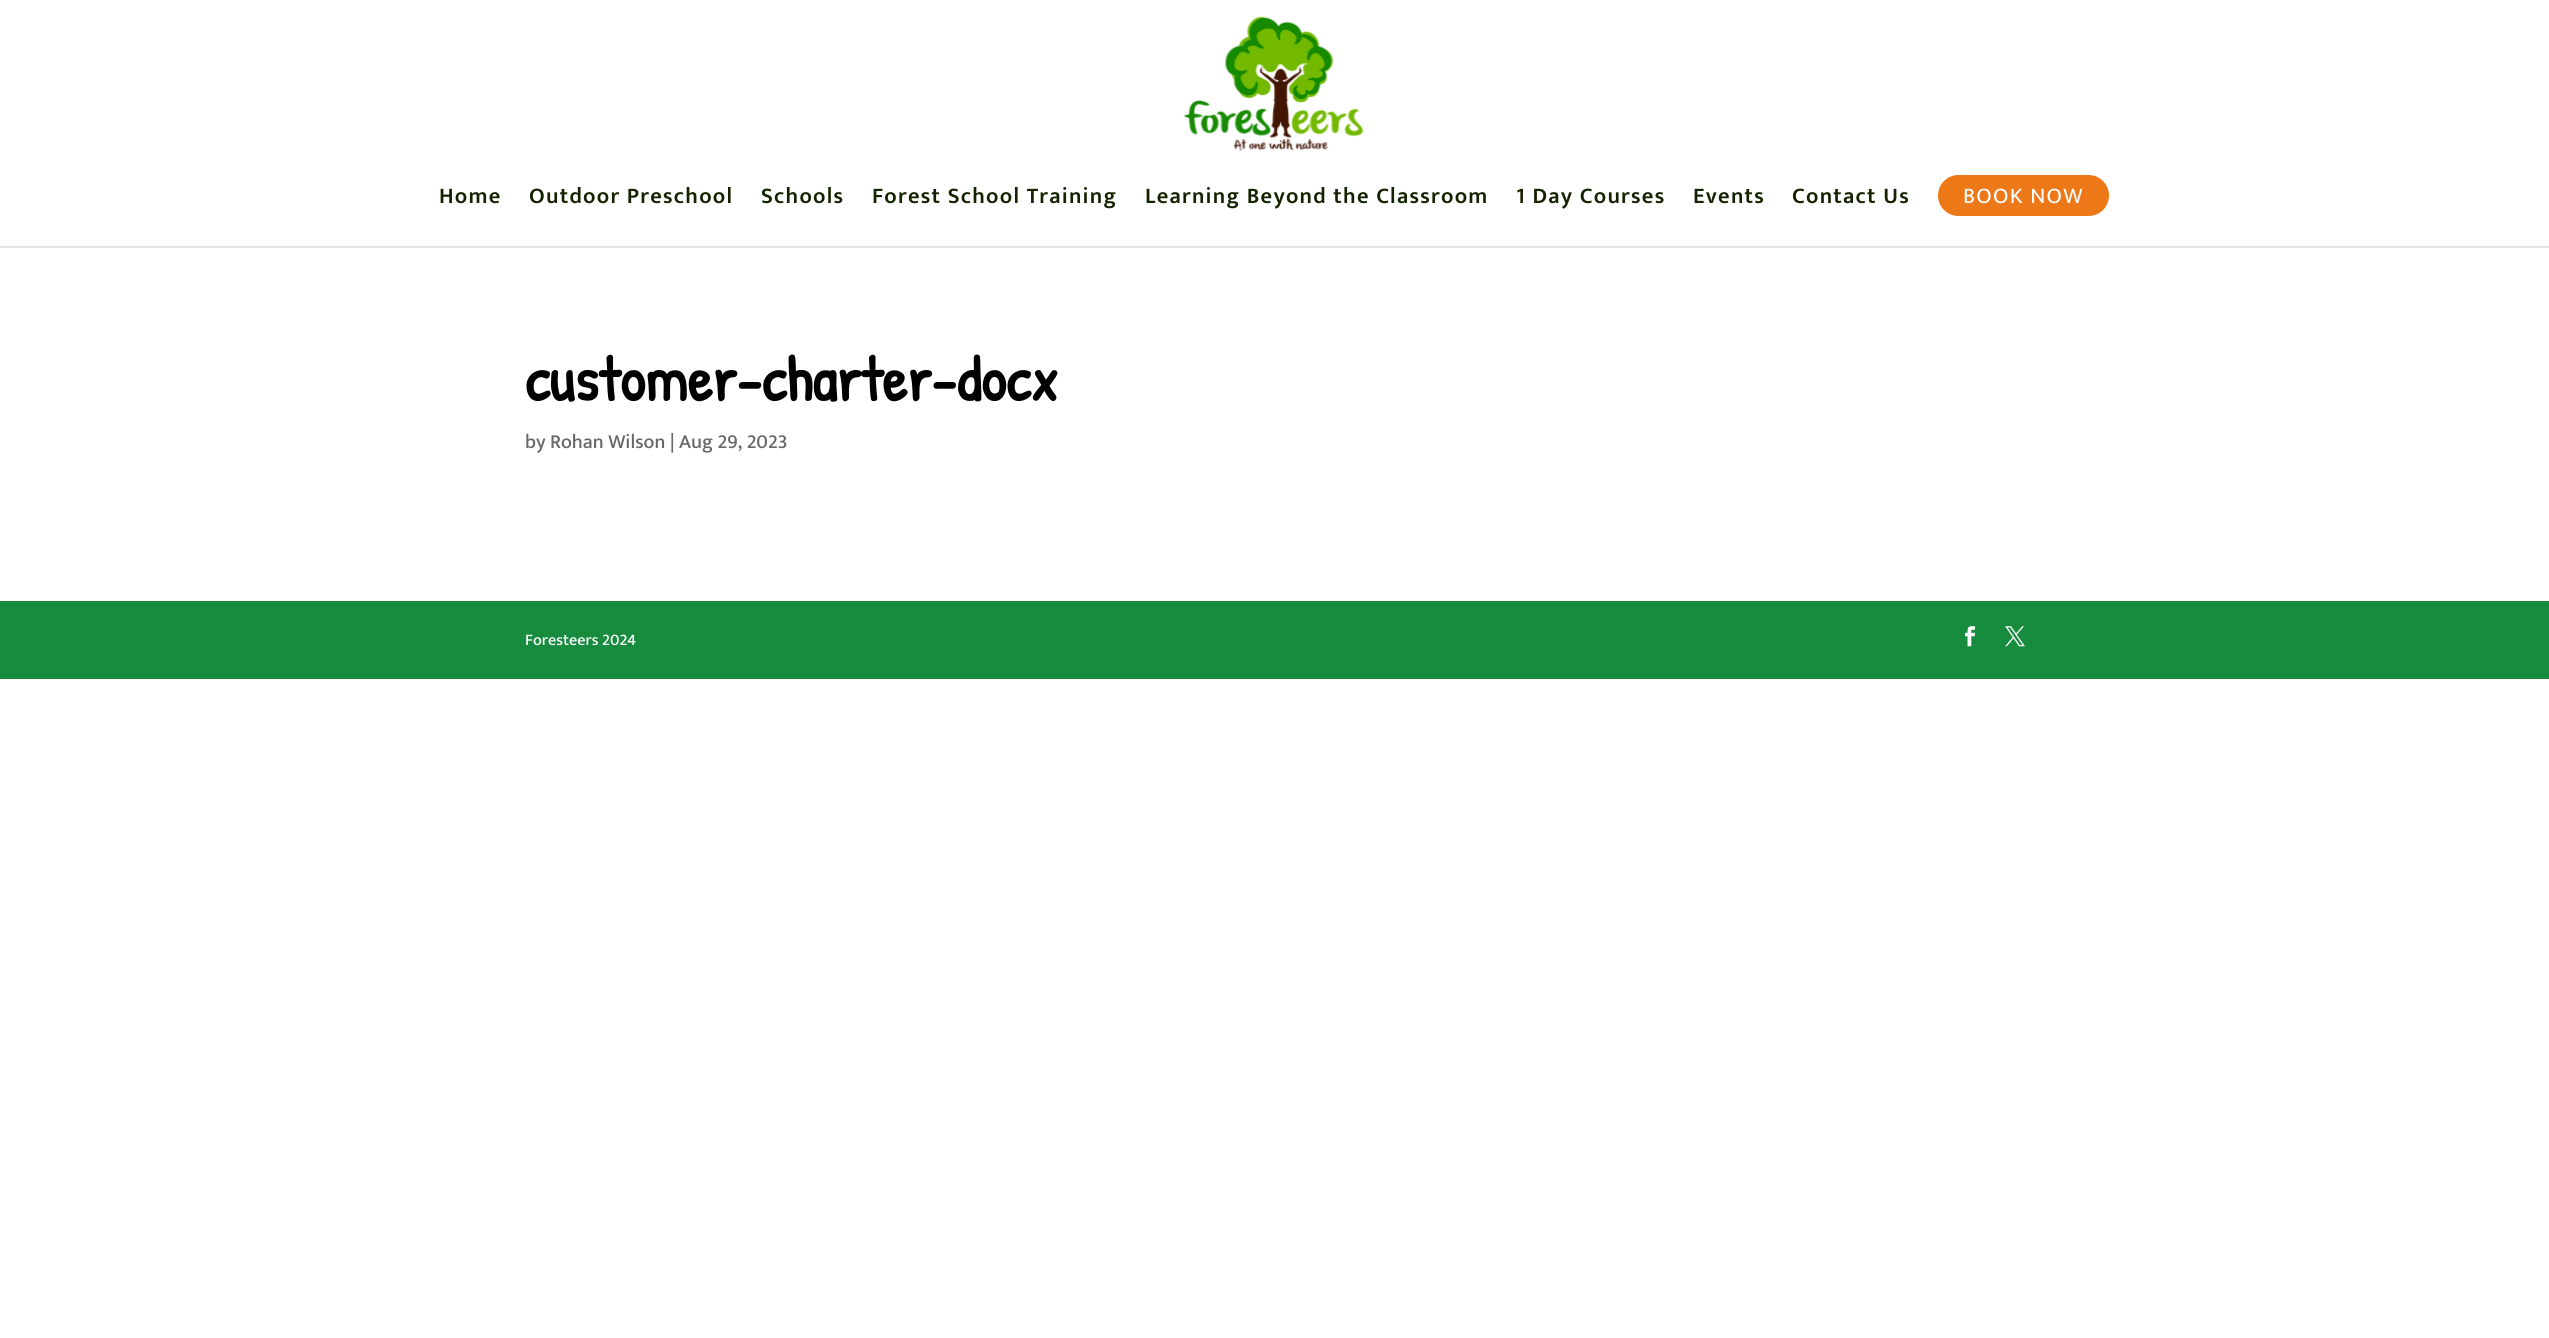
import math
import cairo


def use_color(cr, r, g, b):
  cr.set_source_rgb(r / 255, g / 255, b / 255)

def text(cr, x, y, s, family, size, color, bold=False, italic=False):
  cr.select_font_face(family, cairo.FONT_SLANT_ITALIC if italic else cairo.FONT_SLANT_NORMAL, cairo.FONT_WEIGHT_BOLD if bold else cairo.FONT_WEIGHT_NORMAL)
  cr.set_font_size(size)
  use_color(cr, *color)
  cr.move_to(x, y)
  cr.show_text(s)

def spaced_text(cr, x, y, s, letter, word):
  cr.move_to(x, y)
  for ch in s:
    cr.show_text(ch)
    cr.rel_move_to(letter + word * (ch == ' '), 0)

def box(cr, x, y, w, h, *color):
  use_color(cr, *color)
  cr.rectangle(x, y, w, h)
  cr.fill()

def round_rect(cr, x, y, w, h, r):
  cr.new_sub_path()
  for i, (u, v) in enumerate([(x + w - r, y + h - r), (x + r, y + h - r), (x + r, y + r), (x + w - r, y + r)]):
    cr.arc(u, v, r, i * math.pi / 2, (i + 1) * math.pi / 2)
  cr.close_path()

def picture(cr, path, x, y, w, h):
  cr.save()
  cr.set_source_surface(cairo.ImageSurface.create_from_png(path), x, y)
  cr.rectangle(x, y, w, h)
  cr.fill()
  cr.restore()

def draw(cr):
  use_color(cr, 255, 255, 255)
  cr.paint()
  box(cr, 0, 246, 2549, 2, 230, 230, 230)
  picture(cr, "img_01.png", 1184, 16, 180, 136)
  use_color(cr, 237, 120, 24)
  round_rect(cr, 1938, 175, 171, 41, 20.5)
  cr.fill()
  box(cr, 0, 601, 2549, 78, 23, 140, 62)
  picture(cr, "img_02.png", 1965, 626, 10, 21)
  picture(cr, "img_03.png", 2005, 626, 20, 21)
  cr.select_font_face("Mukta SemiBold")
  cr.set_font_size(22.5)
  use_color(cr, 19, 35, 0)
  spaced_text(cr, 439, 203, "Home", 1.25, 0)
  spaced_text(cr, 529, 203, "Outdoor Preschool", 1.25, 0)
  spaced_text(cr, 761, 203, "Schools", 1.25, 0)
  spaced_text(cr, 872, 203, "Forest School Training", 1.25, 0)
  spaced_text(cr, 1145, 203, "Learning Beyond the Classroom", 1.25, 0)
  spaced_text(cr, 1516, 203, "1 Day Courses", 1.25, 0)
  spaced_text(cr, 1693, 203, "Events", 1.25, 0)
  spaced_text(cr, 1792, 203, "Contact Us", 1.25, 0)
  cr.select_font_face("Mukta")
  use_color(cr, 255, 255, 255)
  spaced_text(cr, 1963, 203, "BOOK NOW", 1.25, 0)
  text(cr, 525, 401, "customer-charter-docx", "Patrick Hand", 62.5, (0, 0, 0), bold=True)
  text(cr, 525, 448, "by", "Mukta Medium", 20, (104, 104, 104))
  text(cr, 550, 448, "Rohan Wilson", "Mukta Medium", 20, (104, 104, 104))
  text(cr, 670, 448, "| Aug 29, 2023", "Mukta Medium", 20, (104, 104, 104))
  text(cr, 525, 645, "Foresteers 2024", "Mukta Medium", 16.25, (255, 255, 255))


surface = cairo.ImageSurface(cairo.FORMAT_RGB24, 2549, 1338)
cr = cairo.Context(surface)
options = cairo.FontOptions()
options.set_hint_metrics(cairo.HINT_METRICS_OFF)
options.set_hint_style(cairo.HINT_STYLE_NONE)
cr.set_font_options(options)
cr.set_miter_limit(4)
draw(cr)
surface.write_to_png("out.png")
